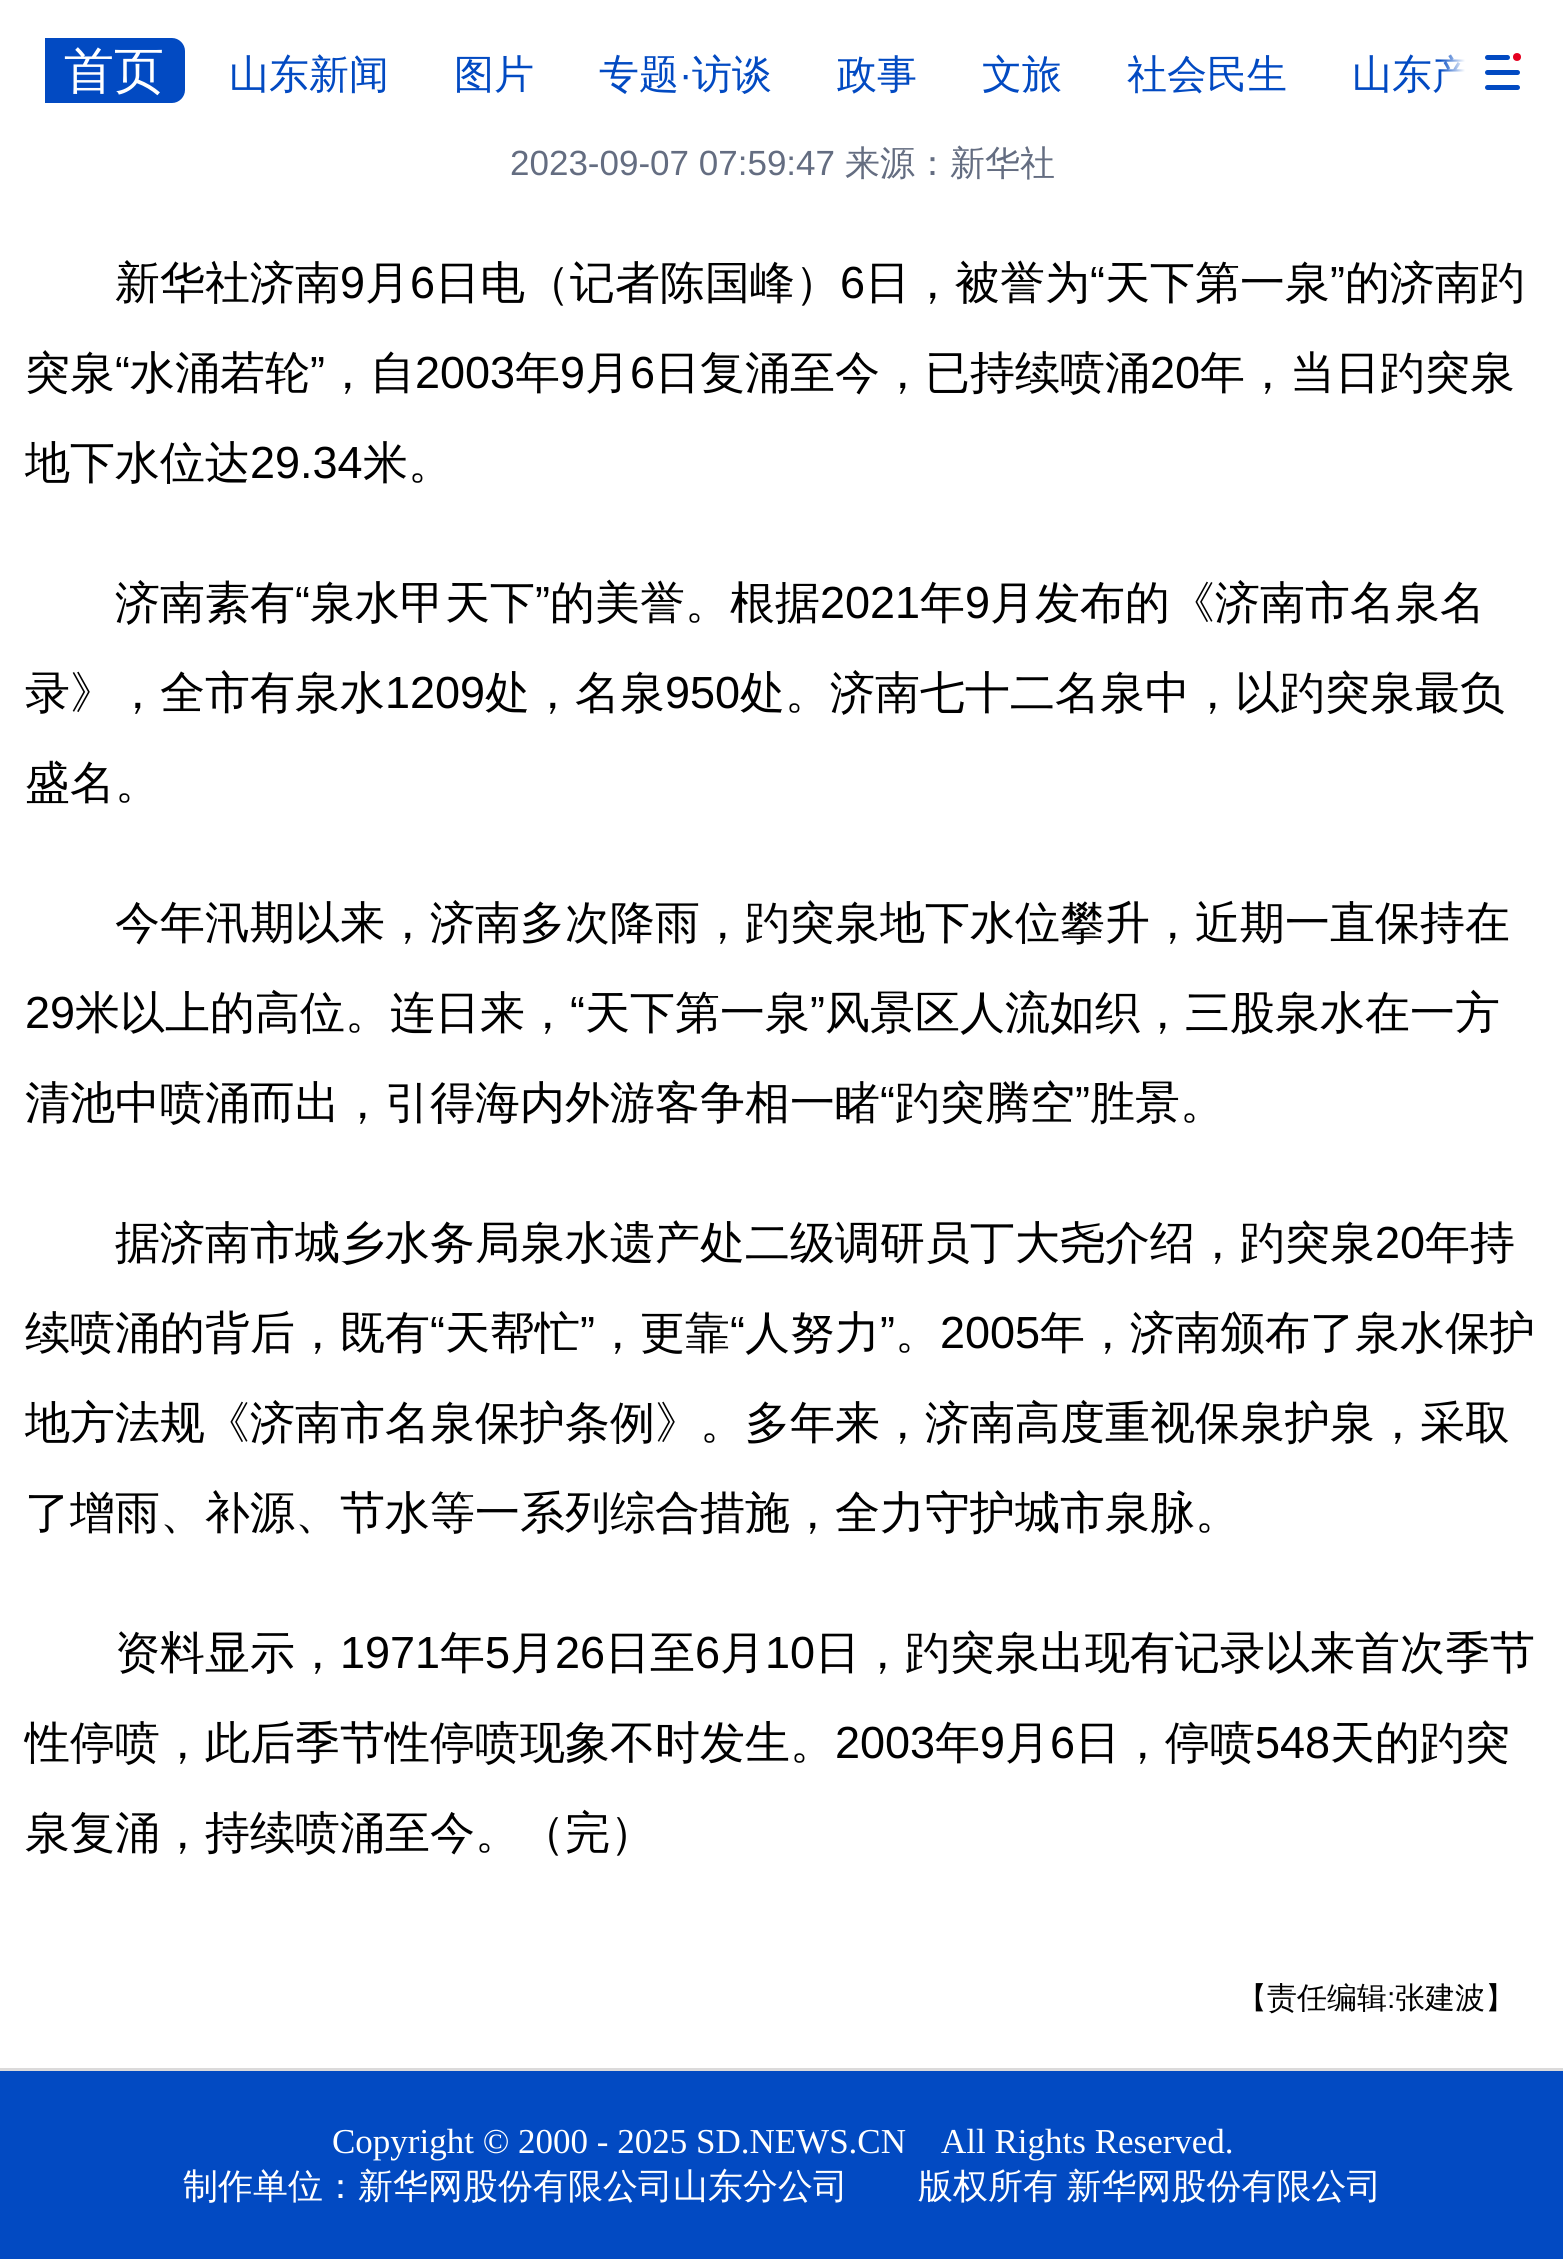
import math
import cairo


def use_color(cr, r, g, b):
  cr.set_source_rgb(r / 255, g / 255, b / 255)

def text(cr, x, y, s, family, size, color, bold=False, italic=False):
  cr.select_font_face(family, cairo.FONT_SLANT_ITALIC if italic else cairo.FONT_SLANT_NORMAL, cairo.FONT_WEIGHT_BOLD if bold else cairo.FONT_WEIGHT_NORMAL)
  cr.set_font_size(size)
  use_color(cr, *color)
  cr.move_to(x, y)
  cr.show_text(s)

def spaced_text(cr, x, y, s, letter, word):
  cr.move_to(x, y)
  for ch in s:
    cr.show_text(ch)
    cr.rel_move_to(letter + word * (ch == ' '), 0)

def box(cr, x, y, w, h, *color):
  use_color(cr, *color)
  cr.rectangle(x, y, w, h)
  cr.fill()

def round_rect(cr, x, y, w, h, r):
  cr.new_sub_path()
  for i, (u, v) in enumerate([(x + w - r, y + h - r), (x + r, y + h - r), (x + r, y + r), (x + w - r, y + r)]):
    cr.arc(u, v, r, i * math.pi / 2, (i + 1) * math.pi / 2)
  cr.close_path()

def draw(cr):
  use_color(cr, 255, 255, 255)
  cr.paint()
  use_color(cr, 2, 74, 194)
  cr.new_path()
  cr.move_to(45, 38)
  cr.line_to(172, 38)
  cr.curve_to(179, 38, 185, 44, 185, 51)
  cr.line_to(185, 90)
  cr.curve_to(185, 97, 179, 103, 172, 103)
  cr.line_to(45, 103)
  cr.close_path()
  cr.fill()
  round_rect(cr, 1485, 55, 25, 5, 2.5)
  cr.fill()
  use_color(cr, 229, 0, 32)
  cr.arc(1517, 57, 4, 0, 2 * math.pi)
  cr.fill()
  use_color(cr, 2, 74, 194)
  round_rect(cr, 1485, 70, 35, 5, 2.5)
  cr.fill()
  round_rect(cr, 1485, 85, 35, 5, 2.5)
  cr.fill()
  box(cr, 0, 2071, 1563, 188, 2, 74, 194)
  box(cr, 0, 2068, 1563, 3, 219, 218, 218)
  text(cr, 64, 88, "首页", "WenQuanYi Zen Hei Medium", 50, (255, 255, 255))
  text(cr, 229, 88, "山东新闻", "WenQuanYi Zen Hei Medium", 40, (2, 74, 194))
  text(cr, 454, 88, "图片", "WenQuanYi Zen Hei Medium", 40, (2, 74, 194))
  text(cr, 599, 88, "专题", "WenQuanYi Zen Hei Medium", 40, (2, 74, 194))
  text(cr, 679, 88, "·", "Liberation Sans", 40, (2, 74, 194))
  text(cr, 692, 88, "访谈", "WenQuanYi Zen Hei Medium", 40, (2, 74, 194))
  text(cr, 837, 88, "政事", "WenQuanYi Zen Hei Medium", 40, (2, 74, 194))
  text(cr, 982, 88, "文旅", "WenQuanYi Zen Hei Medium", 40, (2, 74, 194))
  text(cr, 1127, 88, "社会民生", "WenQuanYi Zen Hei Medium", 40, (2, 74, 194))
  cr.save()
  cr.rectangle(45, 38, 1420, 70)
  cr.clip()
  text(cr, 1352, 88, "山东产", "WenQuanYi Zen Hei Medium", 40, (2, 74, 194))
  cr.restore()
  gradient = cairo.LinearGradient(1440, 73, 1465, 73)
  gradient.add_color_stop_rgba(0, 1, 1, 1, 0)
  gradient.add_color_stop_rgba(1, 1, 1, 1, 1)
  cr.set_source(gradient)
  cr.rectangle(1441, 54, 24, 31)
  cr.fill()
  text(cr, 510, 175, "2023-09-07 07:59:47", "Liberation Sans", 35, (100, 109, 129))
  text(cr, 845, 175, "来源：新华社", "WenQuanYi Zen Hei Medium", 35, (100, 109, 129))
  text(cr, 115, 298, "新华社济南", "WenQuanYi Zen Hei Medium", 45, (0, 0, 0))
  text(cr, 340, 298, "9", "Liberation Sans", 45, (0, 0, 0))
  text(cr, 365, 298, "月", "WenQuanYi Zen Hei Medium", 45, (0, 0, 0))
  text(cr, 410, 298, "6", "Liberation Sans", 45, (0, 0, 0))
  text(cr, 435, 298, "日电（记者陈国峰）", "WenQuanYi Zen Hei Medium", 45, (0, 0, 0))
  text(cr, 840, 298, "6", "Liberation Sans", 45, (0, 0, 0))
  text(cr, 865, 298, "日，被誉为", "WenQuanYi Zen Hei Medium", 45, (0, 0, 0))
  text(cr, 1090, 298, "“", "Liberation Sans", 45, (0, 0, 0))
  text(cr, 1105, 298, "天下第一泉", "WenQuanYi Zen Hei Medium", 45, (0, 0, 0))
  text(cr, 1330, 298, "”", "Liberation Sans", 45, (0, 0, 0))
  text(cr, 1345, 298, "的济南趵", "WenQuanYi Zen Hei Medium", 45, (0, 0, 0))
  text(cr, 25, 388, "突泉", "WenQuanYi Zen Hei Medium", 45, (0, 0, 0))
  text(cr, 115, 388, "“", "Liberation Sans", 45, (0, 0, 0))
  text(cr, 130, 388, "水涌若轮", "WenQuanYi Zen Hei Medium", 45, (0, 0, 0))
  text(cr, 310, 388, "”", "Liberation Sans", 45, (0, 0, 0))
  text(cr, 325, 388, "，自", "WenQuanYi Zen Hei Medium", 45, (0, 0, 0))
  text(cr, 415, 388, "2003", "Liberation Sans", 45, (0, 0, 0))
  text(cr, 515, 388, "年", "WenQuanYi Zen Hei Medium", 45, (0, 0, 0))
  text(cr, 560, 388, "9", "Liberation Sans", 45, (0, 0, 0))
  text(cr, 585, 388, "月", "WenQuanYi Zen Hei Medium", 45, (0, 0, 0))
  text(cr, 630, 388, "6", "Liberation Sans", 45, (0, 0, 0))
  text(cr, 655, 388, "日复涌至今，已持续喷涌", "WenQuanYi Zen Hei Medium", 45, (0, 0, 0))
  text(cr, 1150, 388, "20", "Liberation Sans", 45, (0, 0, 0))
  text(cr, 1200, 388, "年，当日趵突泉", "WenQuanYi Zen Hei Medium", 45, (0, 0, 0))
  text(cr, 25, 478, "地下水位达", "WenQuanYi Zen Hei Medium", 45, (0, 0, 0))
  text(cr, 250, 478, "29.34", "Liberation Sans", 45, (0, 0, 0))
  text(cr, 363, 478, "米。", "WenQuanYi Zen Hei Medium", 45, (0, 0, 0))
  text(cr, 115, 618, "济南素有", "WenQuanYi Zen Hei Medium", 45, (0, 0, 0))
  text(cr, 295, 618, "“", "Liberation Sans", 45, (0, 0, 0))
  text(cr, 310, 618, "泉水甲天下", "WenQuanYi Zen Hei Medium", 45, (0, 0, 0))
  text(cr, 535, 618, "”", "Liberation Sans", 45, (0, 0, 0))
  text(cr, 550, 618, "的美誉。根据", "WenQuanYi Zen Hei Medium", 45, (0, 0, 0))
  text(cr, 820, 618, "2021", "Liberation Sans", 45, (0, 0, 0))
  text(cr, 920, 618, "年", "WenQuanYi Zen Hei Medium", 45, (0, 0, 0))
  text(cr, 965, 618, "9", "Liberation Sans", 45, (0, 0, 0))
  text(cr, 990, 618, "月发布的《济南市名泉名", "WenQuanYi Zen Hei Medium", 45, (0, 0, 0))
  text(cr, 25, 708, "录》，全市有泉水", "WenQuanYi Zen Hei Medium", 45, (0, 0, 0))
  text(cr, 385, 708, "1209", "Liberation Sans", 45, (0, 0, 0))
  text(cr, 485, 708, "处，名泉", "WenQuanYi Zen Hei Medium", 45, (0, 0, 0))
  text(cr, 665, 708, "950", "Liberation Sans", 45, (0, 0, 0))
  text(cr, 740, 708, "处。济南七十二名泉中，以趵突泉最负", "WenQuanYi Zen Hei Medium", 45, (0, 0, 0))
  text(cr, 25, 798, "盛名。", "WenQuanYi Zen Hei Medium", 45, (0, 0, 0))
  text(cr, 115, 938, "今年汛期以来，济南多次降雨，趵突泉地下水位攀升，近期一直保持在", "WenQuanYi Zen Hei Medium", 45, (0, 0, 0))
  text(cr, 25, 1028, "29", "Liberation Sans", 45, (0, 0, 0))
  text(cr, 75, 1028, "米以上的高位。连日来，", "WenQuanYi Zen Hei Medium", 45, (0, 0, 0))
  text(cr, 570, 1028, "“", "Liberation Sans", 45, (0, 0, 0))
  text(cr, 585, 1028, "天下第一泉", "WenQuanYi Zen Hei Medium", 45, (0, 0, 0))
  text(cr, 810, 1028, "”", "Liberation Sans", 45, (0, 0, 0))
  text(cr, 825, 1028, "风景区人流如织，三股泉水在一方", "WenQuanYi Zen Hei Medium", 45, (0, 0, 0))
  text(cr, 25, 1118, "清池中喷涌而出，引得海内外游客争相一睹", "WenQuanYi Zen Hei Medium", 45, (0, 0, 0))
  text(cr, 880, 1118, "“", "Liberation Sans", 45, (0, 0, 0))
  text(cr, 895, 1118, "趵突腾空", "WenQuanYi Zen Hei Medium", 45, (0, 0, 0))
  text(cr, 1075, 1118, "”", "Liberation Sans", 45, (0, 0, 0))
  text(cr, 1090, 1118, "胜景。", "WenQuanYi Zen Hei Medium", 45, (0, 0, 0))
  text(cr, 115, 1258, "据济南市城乡水务局泉水遗产处二级调研员丁大尧介绍，趵突泉", "WenQuanYi Zen Hei Medium", 45, (0, 0, 0))
  text(cr, 1375, 1258, "20", "Liberation Sans", 45, (0, 0, 0))
  text(cr, 1425, 1258, "年持", "WenQuanYi Zen Hei Medium", 45, (0, 0, 0))
  text(cr, 25, 1348, "续喷涌的背后，既有", "WenQuanYi Zen Hei Medium", 45, (0, 0, 0))
  text(cr, 430, 1348, "“", "Liberation Sans", 45, (0, 0, 0))
  text(cr, 445, 1348, "天帮忙", "WenQuanYi Zen Hei Medium", 45, (0, 0, 0))
  text(cr, 580, 1348, "”", "Liberation Sans", 45, (0, 0, 0))
  text(cr, 595, 1348, "，更靠", "WenQuanYi Zen Hei Medium", 45, (0, 0, 0))
  text(cr, 730, 1348, "“", "Liberation Sans", 45, (0, 0, 0))
  text(cr, 745, 1348, "人努力", "WenQuanYi Zen Hei Medium", 45, (0, 0, 0))
  text(cr, 880, 1348, "”", "Liberation Sans", 45, (0, 0, 0))
  text(cr, 940, 1348, "2005", "Liberation Sans", 45, (0, 0, 0))
  text(cr, 1040, 1348, "年，济南颁布了泉水保护", "WenQuanYi Zen Hei Medium", 45, (0, 0, 0))
  text(cr, 895, 1348, "。", "WenQuanYi Zen Hei Medium", 45, (0, 0, 0))
  text(cr, 25, 1438, "地方法规《济南市名泉保护条例》。多年来，济南高度重视保泉护泉，采取", "WenQuanYi Zen Hei Medium", 45, (0, 0, 0))
  text(cr, 25, 1528, "了增雨、补源、节水等一系列综合措施，全力守护城市泉脉。", "WenQuanYi Zen Hei Medium", 45, (0, 0, 0))
  text(cr, 115, 1668, "资料显示，", "WenQuanYi Zen Hei Medium", 45, (0, 0, 0))
  text(cr, 340, 1668, "1971", "Liberation Sans", 45, (0, 0, 0))
  text(cr, 440, 1668, "年", "WenQuanYi Zen Hei Medium", 45, (0, 0, 0))
  text(cr, 485, 1668, "5", "Liberation Sans", 45, (0, 0, 0))
  text(cr, 510, 1668, "月", "WenQuanYi Zen Hei Medium", 45, (0, 0, 0))
  text(cr, 555, 1668, "26", "Liberation Sans", 45, (0, 0, 0))
  text(cr, 605, 1668, "日至", "WenQuanYi Zen Hei Medium", 45, (0, 0, 0))
  text(cr, 695, 1668, "6", "Liberation Sans", 45, (0, 0, 0))
  text(cr, 720, 1668, "月", "WenQuanYi Zen Hei Medium", 45, (0, 0, 0))
  text(cr, 765, 1668, "10", "Liberation Sans", 45, (0, 0, 0))
  text(cr, 815, 1668, "日，趵突泉出现有记录以来首次季节", "WenQuanYi Zen Hei Medium", 45, (0, 0, 0))
  text(cr, 25, 1758, "性停喷，此后季节性停喷现象不时发生。", "WenQuanYi Zen Hei Medium", 45, (0, 0, 0))
  text(cr, 835, 1758, "2003", "Liberation Sans", 45, (0, 0, 0))
  text(cr, 935, 1758, "年", "WenQuanYi Zen Hei Medium", 45, (0, 0, 0))
  text(cr, 980, 1758, "9", "Liberation Sans", 45, (0, 0, 0))
  text(cr, 1005, 1758, "月", "WenQuanYi Zen Hei Medium", 45, (0, 0, 0))
  text(cr, 1050, 1758, "6", "Liberation Sans", 45, (0, 0, 0))
  text(cr, 1075, 1758, "日，停喷", "WenQuanYi Zen Hei Medium", 45, (0, 0, 0))
  text(cr, 1255, 1758, "548", "Liberation Sans", 45, (0, 0, 0))
  text(cr, 1330, 1758, "天的趵突", "WenQuanYi Zen Hei Medium", 45, (0, 0, 0))
  text(cr, 25, 1848, "泉复涌，持续喷涌至今。（完）", "WenQuanYi Zen Hei Medium", 45, (0, 0, 0))
  text(cr, 1237, 2008, "【责任编辑", "WenQuanYi Zen Hei Medium", 30, (0, 0, 0))
  text(cr, 1387, 2008, ":", "Liberation Sans", 30, (0, 0, 0))
  text(cr, 1395, 2008, "张建波】", "WenQuanYi Zen Hei Medium", 30, (0, 0, 0))
  text(cr, 332, 2153, "Copyright © 2000 - 2025 SD.NEWS.CN", "Liberation Serif", 35, (255, 255, 255))
  text(cr, 941, 2153, "All Rights Reserved.", "Liberation Serif", 35, (255, 255, 255))
  cr.select_font_face("WenQuanYi Zen Hei Medium")
  spaced_text(cr, 183, 2198, "制作单位：新华网股份有限公司山东分公司　　版权所有 新华网股份有限公司", 0, -2)


surface = cairo.ImageSurface(cairo.FORMAT_RGB24, 1563, 2259)
cr = cairo.Context(surface)
options = cairo.FontOptions()
options.set_hint_metrics(cairo.HINT_METRICS_OFF)
options.set_hint_style(cairo.HINT_STYLE_NONE)
cr.set_font_options(options)
cr.set_miter_limit(4)
draw(cr)
surface.write_to_png("out.png")
